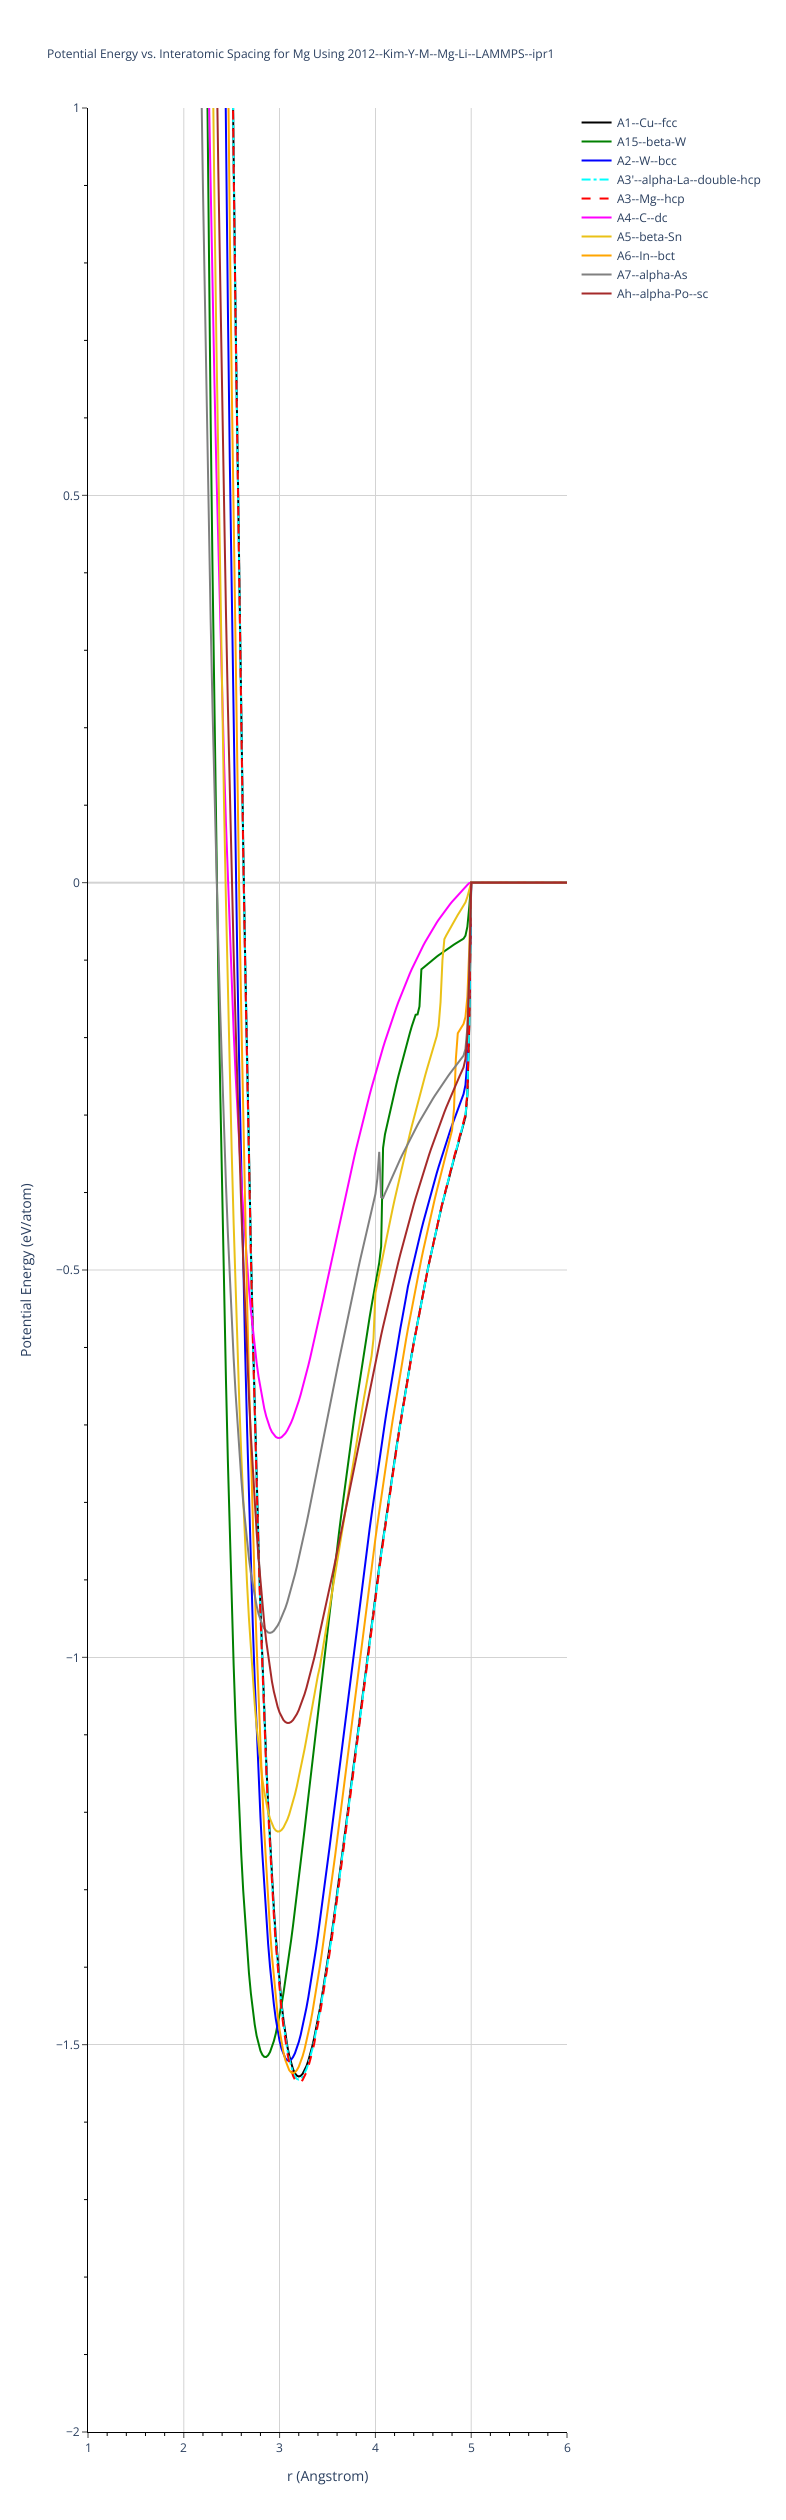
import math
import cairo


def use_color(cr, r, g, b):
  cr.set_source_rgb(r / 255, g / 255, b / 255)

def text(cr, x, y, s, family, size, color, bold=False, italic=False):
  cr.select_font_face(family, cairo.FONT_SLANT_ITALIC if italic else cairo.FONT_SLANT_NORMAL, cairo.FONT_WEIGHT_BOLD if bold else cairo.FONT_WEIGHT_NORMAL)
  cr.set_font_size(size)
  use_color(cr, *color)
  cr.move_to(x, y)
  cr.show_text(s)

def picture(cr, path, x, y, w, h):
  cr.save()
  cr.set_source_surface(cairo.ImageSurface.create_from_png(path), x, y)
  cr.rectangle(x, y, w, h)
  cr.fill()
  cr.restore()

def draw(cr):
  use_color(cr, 255, 255, 255)
  cr.paint()
  picture(cr, "img_01.png", 581, 121, 31, 174)
  picture(cr, "img_02.png", 82, 107, 486, 2331)
  text(cr, 47, 58, "Potential Energy vs. Interatomic Spacing for Mg Using 2012--Kim-Y-M--Mg-Li--LAMMPS--ipr1", "Open Sans", 12, (42, 63, 95))
  text(cr, 617, 127, "A1--Cu--fcc", "Open Sans", 12, (42, 63, 95))
  text(cr, 617, 146, "A15--beta-W", "Open Sans", 12, (42, 63, 95))
  text(cr, 617, 165, "A2--W--bcc", "Open Sans", 12, (42, 63, 95))
  text(cr, 617, 184, "A3'--alpha-La--double-hcp", "Open Sans", 12, (42, 63, 95))
  text(cr, 617, 203, "A3--Mg--hcp", "Open Sans", 12, (42, 63, 95))
  text(cr, 617, 222, "A4--C--dc", "Open Sans", 12, (42, 63, 95))
  text(cr, 617, 241, "A5--beta-Sn", "Open Sans", 12, (42, 63, 95))
  text(cr, 617, 260, "A6--In--bct", "Open Sans", 12, (42, 63, 95))
  text(cr, 617, 279, "A7--alpha-As", "Open Sans", 12, (42, 63, 95))
  text(cr, 617, 298, "Ah--alpha-Po--sc", "Open Sans", 12, (42, 63, 95))
  cr.save()
  cr.translate(31, 1357)
  cr.rotate(-90 * math.pi / 180)
  text(cr, 0, 0, "Potential Energy (eV/atom)", "Open Sans", 14, (42, 63, 95))
  cr.restore()
  text(cr, 287, 2481, "r (Angstrom)", "Open Sans", 14, (42, 63, 95))
  text(cr, 73, 112, "1", "Open Sans", 12, (42, 63, 95))
  text(cr, 63, 500, "0.5", "Open Sans", 12, (42, 63, 95))
  text(cr, 73, 887, "0", "Open Sans", 12, (42, 63, 95))
  text(cr, 56, 1274, "−0.5", "Open Sans", 12, (42, 63, 95))
  text(cr, 66, 1662, "−1", "Open Sans", 12, (42, 63, 95))
  text(cr, 56, 2049, "−1.5", "Open Sans", 12, (42, 63, 95))
  text(cr, 66, 2436, "−2", "Open Sans", 12, (42, 63, 95))
  text(cr, 85, 2452, "1", "Open Sans", 12, (42, 63, 95))
  text(cr, 180, 2452, "2", "Open Sans", 12, (42, 63, 95))
  text(cr, 276, 2452, "3", "Open Sans", 12, (42, 63, 95))
  text(cr, 372, 2452, "4", "Open Sans", 12, (42, 63, 95))
  text(cr, 468, 2452, "5", "Open Sans", 12, (42, 63, 95))
  text(cr, 564, 2452, "6", "Open Sans", 12, (42, 63, 95))


surface = cairo.ImageSurface(cairo.FORMAT_RGB24, 786, 2520)
cr = cairo.Context(surface)
options = cairo.FontOptions()
options.set_hint_metrics(cairo.HINT_METRICS_OFF)
options.set_hint_style(cairo.HINT_STYLE_NONE)
cr.set_font_options(options)
cr.set_miter_limit(4)
draw(cr)
surface.write_to_png("out.png")
